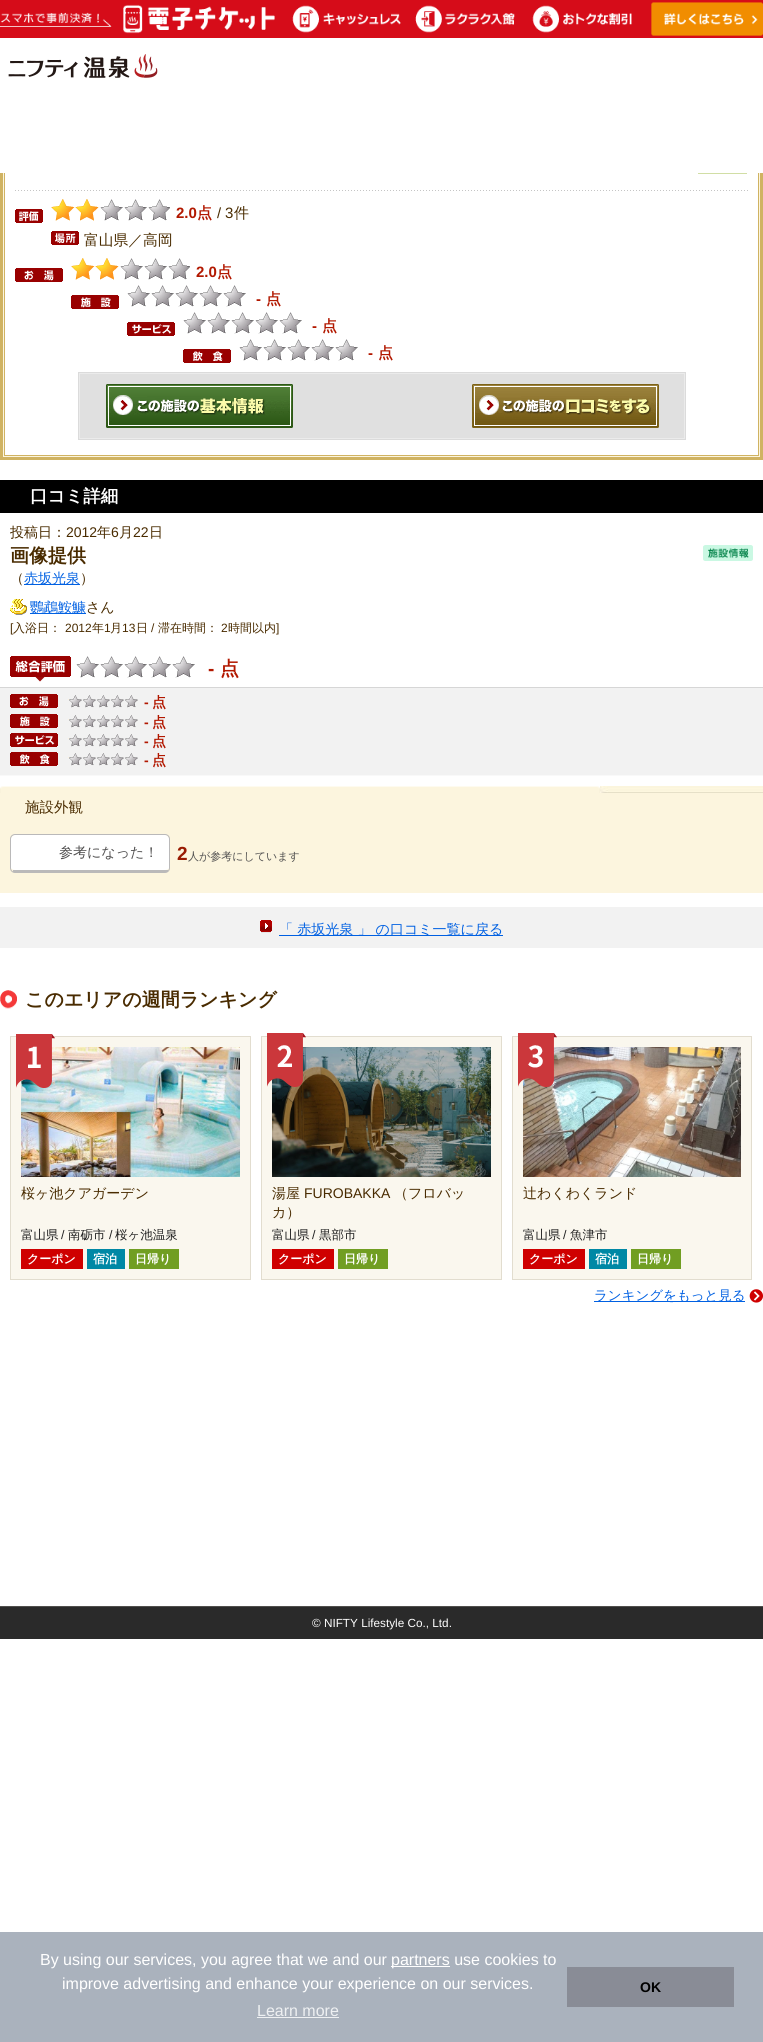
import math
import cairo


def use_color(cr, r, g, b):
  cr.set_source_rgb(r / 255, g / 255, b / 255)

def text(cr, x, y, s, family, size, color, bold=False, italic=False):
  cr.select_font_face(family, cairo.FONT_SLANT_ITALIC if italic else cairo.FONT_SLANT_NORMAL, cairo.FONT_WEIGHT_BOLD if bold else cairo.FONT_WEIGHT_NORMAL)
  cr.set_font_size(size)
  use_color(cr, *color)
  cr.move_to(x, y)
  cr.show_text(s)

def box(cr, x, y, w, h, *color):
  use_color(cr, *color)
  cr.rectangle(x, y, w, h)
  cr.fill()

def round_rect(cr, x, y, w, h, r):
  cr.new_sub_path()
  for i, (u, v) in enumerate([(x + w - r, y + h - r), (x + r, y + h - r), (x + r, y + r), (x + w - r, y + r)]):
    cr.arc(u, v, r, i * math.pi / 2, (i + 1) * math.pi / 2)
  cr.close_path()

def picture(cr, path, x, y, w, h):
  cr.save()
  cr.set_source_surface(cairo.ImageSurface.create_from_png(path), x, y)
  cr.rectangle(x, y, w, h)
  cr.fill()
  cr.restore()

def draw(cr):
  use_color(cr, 255, 255, 255)
  cr.paint()
  box(cr, 3, 173, 757, 284, 252, 245, 222)
  cr.rectangle(1.5, 125.5, 760, 333)
  use_color(cr, 208, 179, 98)
  cr.set_line_width(3)
  cr.stroke()
  box(cr, 5, 173, 753, 282, 255, 255, 255)
  cr.rectangle(4.5, 128.5, 754, 327)
  use_color(cr, 208, 179, 98)
  cr.set_line_width(1)
  cr.stroke()
  box(cr, 0, 124, 763, 49, 255, 255, 255)
  picture(cr, "img_01.png", 0, 0, 763, 38)
  picture(cr, "img_02.png", 8, 54, 150, 24)
  picture(cr, "img_03.png", 697, 173, 51, 1)
  picture(cr, "img_04.png", 15, 190, 733, 1)
  picture(cr, "img_05.png", 15, 209, 28, 14)
  picture(cr, "img_06.png", 51, 199, 119, 22)
  picture(cr, "img_07.png", 51, 231, 28, 14)
  picture(cr, "img_08.png", 15, 268, 48, 14)
  picture(cr, "img_06.png", 71, 258, 119, 22)
  picture(cr, "img_09.png", 71, 295, 48, 14)
  picture(cr, "img_10.png", 127, 285, 119, 22)
  picture(cr, "img_11.png", 127, 322, 48, 14)
  picture(cr, "img_10.png", 183, 312, 119, 22)
  picture(cr, "img_12.png", 183, 349, 48, 14)
  picture(cr, "img_10.png", 239, 339, 119, 22)
  picture(cr, "img_13.png", 78, 372, 608, 68)
  picture(cr, "img_14.png", 106, 384, 187, 44)
  picture(cr, "img_15.png", 472, 384, 187, 44)
  box(cr, 0, 480, 763, 33, 0, 0, 0)
  box(cr, 24, 584, 56, 1, 0, 96, 226)
  picture(cr, "img_16.png", 703, 545, 50, 16)
  picture(cr, "img_17.png", 10, 599, 17, 16)
  box(cr, 30, 613, 56, 1, 0, 96, 226)
  picture(cr, "img_18.png", 10, 656, 61, 26)
  picture(cr, "img_10.png", 76, 656, 119, 22)
  box(cr, 0, 688, 763, 87, 242, 242, 242)
  box(cr, 0, 687, 763, 1, 214, 214, 214)
  box(cr, 0, 775, 763, 1, 249, 249, 249)
  picture(cr, "img_08.png", 10, 694, 48, 14)
  picture(cr, "img_19.png", 68, 695, 70, 13)
  picture(cr, "img_09.png", 10, 714, 48, 14)
  picture(cr, "img_19.png", 68, 715, 70, 13)
  picture(cr, "img_20.png", 10, 733, 48, 14)
  picture(cr, "img_19.png", 68, 734, 70, 13)
  picture(cr, "img_12.png", 10, 752, 48, 14)
  picture(cr, "img_19.png", 68, 753, 70, 13)
  box(cr, 0, 793, 763, 100, 252, 245, 222)
  picture(cr, "img_21.png", 0, 786, 763, 7)
  use_color(cr, 255, 255, 255)
  cr.new_path()
  cr.move_to(15, 835)
  cr.line_to(165, 835)
  cr.curve_to(167, 835, 169, 837, 169, 839)
  cr.line_to(169, 868)
  cr.curve_to(169, 869, 167, 870, 165, 870)
  cr.line_to(15, 870)
  cr.curve_to(13, 870, 11, 869, 11, 868)
  cr.line_to(11, 839)
  cr.curve_to(11, 837, 13, 835, 15, 835)
  cr.close_path()
  cr.fill()
  round_rect(cr, 10.5, 834.5, 159, 38, 4.5)
  use_color(cr, 186, 185, 185)
  cr.stroke()
  box(cr, 13, 870, 155, 2, 186, 185, 185)
  box(cr, 0, 907, 763, 41, 242, 242, 242)
  picture(cr, "img_22.png", 260, 920, 12, 13)
  box(cr, 279, 935, 224, 1, 0, 96, 226)
  picture(cr, "img_23.png", 0, 990, 17, 19)
  use_color(cr, 250, 247, 238)
  cr.rectangle(10.5, 1036.5, 240, 243)
  cr.fill_preserve()
  use_color(cr, 226, 221, 207)
  cr.stroke()
  picture(cr, "img_25.png", 21, 1047, 219, 130)
  picture(cr, "img_24.png", 16, 1034, 39, 54)
  box(cr, 21, 1249, 62, 20, 207, 0, 0)
  box(cr, 87, 1249, 38, 20, 0, 136, 165)
  box(cr, 129, 1249, 50, 20, 113, 158, 34)
  use_color(cr, 250, 247, 238)
  cr.rectangle(261.5, 1036.5, 240, 243)
  cr.fill_preserve()
  use_color(cr, 226, 221, 207)
  cr.stroke()
  picture(cr, "img_27.png", 272, 1047, 219, 130)
  picture(cr, "img_26.png", 267, 1033, 39, 54)
  box(cr, 272, 1249, 62, 20, 207, 0, 0)
  box(cr, 338, 1249, 50, 20, 113, 158, 34)
  use_color(cr, 250, 247, 238)
  cr.rectangle(512.5, 1036.5, 239, 243)
  cr.fill_preserve()
  use_color(cr, 226, 221, 207)
  cr.stroke()
  picture(cr, "img_29.png", 523, 1047, 218, 130)
  picture(cr, "img_28.png", 518, 1033, 39, 54)
  box(cr, 523, 1249, 62, 20, 207, 0, 0)
  box(cr, 589, 1249, 38, 20, 0, 136, 165)
  box(cr, 631, 1249, 50, 20, 113, 158, 34)
  picture(cr, "img_30.png", 749, 1289, 14, 14)
  box(cr, 594, 1301, 151, 1, 0, 96, 226)
  box(cr, 0, 1607, 763, 32, 42, 42, 42)
  box(cr, 0, 1606, 763, 1, 80, 79, 77)
  box(cr, 0, 1932, 763, 110, 170, 178, 189)
  box(cr, 391, 1966, 59, 1, 255, 255, 255)
  box(cr, 257, 2017, 82, 1, 238, 240, 242)
  box(cr, 567, 1967, 167, 40, 137, 140, 150)
  text(cr, 176, 218, "2.0", "Liberation Sans", 15, (178, 24, 0), bold=True)
  text(cr, 197, 218, "点", "WenQuanYi Zen Hei", 15, (178, 24, 0), bold=True)
  text(cr, 217, 218, "/", "Liberation Sans", 14.75, (73, 43, 0))
  text(cr, 225, 218, "3", "Liberation Sans", 15, (73, 43, 0))
  text(cr, 234, 218, "件", "WenQuanYi Zen Hei Medium", 15, (73, 43, 0))
  text(cr, 84, 245, "富山県／高岡", "WenQuanYi Zen Hei Medium", 14.75, (73, 43, 0))
  text(cr, 196, 277, "2.0", "Liberation Sans", 15, (178, 24, 0), bold=True)
  text(cr, 217, 277, "点", "WenQuanYi Zen Hei", 15, (178, 24, 0), bold=True)
  text(cr, 256, 304, "-", "Liberation Sans", 15, (178, 24, 0), bold=True)
  text(cr, 266, 304, "点", "WenQuanYi Zen Hei", 15, (178, 24, 0), bold=True)
  text(cr, 312, 331, "-", "Liberation Sans", 15, (178, 24, 0), bold=True)
  text(cr, 322, 331, "点", "WenQuanYi Zen Hei", 15, (178, 24, 0), bold=True)
  text(cr, 368, 358, "-", "Liberation Sans", 15, (178, 24, 0), bold=True)
  text(cr, 378, 358, "点", "WenQuanYi Zen Hei", 15, (178, 24, 0), bold=True)
  text(cr, 30, 502, "口コミ詳細", "WenQuanYi Zen Hei", 17.5, (255, 255, 255), bold=True)
  text(cr, 10, 537, "投稿日：", "WenQuanYi Zen Hei Medium", 14, (73, 43, 0))
  text(cr, 66, 537, "2012", "Liberation Sans", 14, (73, 43, 0))
  text(cr, 97, 537, "年", "WenQuanYi Zen Hei Medium", 14, (73, 43, 0))
  text(cr, 111, 537, "6", "Liberation Sans", 14, (73, 43, 0))
  text(cr, 119, 537, "月", "WenQuanYi Zen Hei Medium", 14, (73, 43, 0))
  text(cr, 133, 537, "22", "Liberation Sans", 14, (73, 43, 0))
  text(cr, 149, 537, "日", "WenQuanYi Zen Hei Medium", 14, (73, 43, 0))
  text(cr, 10, 562, "画像提供", "WenQuanYi Zen Hei", 19, (73, 43, 0), bold=True)
  text(cr, 10, 583, "（", "WenQuanYi Zen Hei Medium", 14, (73, 43, 0))
  text(cr, 24, 583, "赤坂光泉", "WenQuanYi Zen Hei Medium", 14, (0, 96, 226))
  text(cr, 80, 583, "）", "WenQuanYi Zen Hei Medium", 14, (73, 43, 0))
  text(cr, 30, 612, "鸚鵡鮟鱇", "WenQuanYi Zen Hei Medium", 14, (0, 96, 226))
  text(cr, 86, 612, "さん", "WenQuanYi Zen Hei Medium", 14, (73, 43, 0))
  text(cr, 10, 632, "[", "Liberation Sans", 12, (73, 43, 0))
  text(cr, 13, 632, "入浴日：", "WenQuanYi Zen Hei Medium", 12, (73, 43, 0))
  text(cr, 65, 632, "2012", "Liberation Sans", 12, (73, 43, 0))
  text(cr, 92, 632, "年", "WenQuanYi Zen Hei Medium", 12, (73, 43, 0))
  text(cr, 104, 632, "1", "Liberation Sans", 12, (73, 43, 0))
  text(cr, 110, 632, "月", "WenQuanYi Zen Hei Medium", 12, (73, 43, 0))
  text(cr, 122, 632, "13", "Liberation Sans", 12, (73, 43, 0))
  text(cr, 136, 632, "日", "WenQuanYi Zen Hei Medium", 12, (73, 43, 0))
  text(cr, 151, 632, "/", "Liberation Sans", 12, (73, 43, 0))
  text(cr, 158, 632, "滞在時間：", "WenQuanYi Zen Hei Medium", 12, (73, 43, 0))
  text(cr, 221, 632, "2", "Liberation Sans", 12, (73, 43, 0))
  text(cr, 228, 632, "時間以内", "WenQuanYi Zen Hei Medium", 12, (73, 43, 0))
  text(cr, 276, 632, "]", "Liberation Sans", 12, (73, 43, 0))
  text(cr, 208, 675, "-", "Liberation Sans", 19, (178, 24, 0), bold=True)
  text(cr, 220, 675, "点", "WenQuanYi Zen Hei", 19, (178, 24, 0), bold=True)
  text(cr, 144, 707, "-", "Liberation Sans", 14, (178, 24, 0), bold=True)
  text(cr, 152, 707, "点", "WenQuanYi Zen Hei", 14, (178, 24, 0), bold=True)
  text(cr, 144, 727, "-", "Liberation Sans", 14, (178, 24, 0), bold=True)
  text(cr, 152, 727, "点", "WenQuanYi Zen Hei", 14, (178, 24, 0), bold=True)
  text(cr, 144, 746, "-", "Liberation Sans", 14, (178, 24, 0), bold=True)
  text(cr, 152, 746, "点", "WenQuanYi Zen Hei", 14, (178, 24, 0), bold=True)
  text(cr, 144, 765, "-", "Liberation Sans", 14, (178, 24, 0), bold=True)
  text(cr, 152, 765, "点", "WenQuanYi Zen Hei", 14, (178, 24, 0), bold=True)
  text(cr, 25, 812, "施設外観", "WenQuanYi Zen Hei Medium", 14.5, (73, 43, 0))
  text(cr, 59, 857, "参考になった！", "WenQuanYi Zen Hei Medium", 14, (80, 79, 79))
  text(cr, 177, 860, "2", "Liberation Sans", 19, (153, 27, 2), bold=True)
  text(cr, 188, 860, "人が参考にしています", "WenQuanYi Zen Hei Medium", 11, (80, 79, 79))
  text(cr, 279, 934, "「 赤坂光泉 」 の口コミ一覧に戻る", "WenQuanYi Zen Hei Medium", 14, (0, 96, 226))
  text(cr, 25, 1006, "このエリアの週間ランキング", "WenQuanYi Zen Hei", 19, (73, 43, 0), bold=True)
  text(cr, 21, 1198, "桜ヶ池クアガーデン", "WenQuanYi Zen Hei Medium", 14, (73, 43, 0))
  text(cr, 21, 1239, "富山県", "WenQuanYi Zen Hei Medium", 12.5, (31, 31, 31))
  text(cr, 61, 1239, "/", "Liberation Sans", 12.5, (31, 31, 31))
  text(cr, 68, 1239, "南砺市", "WenQuanYi Zen Hei Medium", 12.5, (31, 31, 31))
  text(cr, 109, 1239, "/", "Liberation Sans", 12.5, (31, 31, 31))
  text(cr, 115, 1239, "桜ヶ池温泉", "WenQuanYi Zen Hei Medium", 12.5, (31, 31, 31))
  text(cr, 27, 1263, "クーポン", "WenQuanYi Zen Hei", 12, (255, 255, 255), bold=True)
  text(cr, 93, 1263, "宿泊", "WenQuanYi Zen Hei", 12, (255, 255, 255), bold=True)
  text(cr, 135, 1263, "日帰り", "WenQuanYi Zen Hei", 12, (255, 255, 255), bold=True)
  text(cr, 272, 1198, "湯屋", "WenQuanYi Zen Hei Medium", 14, (73, 43, 0))
  text(cr, 304, 1198, "FUROBAKKA", "Liberation Sans", 14, (73, 43, 0))
  text(cr, 394, 1198, "（フロバッ", "WenQuanYi Zen Hei Medium", 14, (73, 43, 0))
  text(cr, 272, 1217, "カ）", "WenQuanYi Zen Hei Medium", 14, (73, 43, 0))
  text(cr, 272, 1239, "富山県", "WenQuanYi Zen Hei Medium", 12.5, (31, 31, 31))
  text(cr, 312, 1239, "/", "Liberation Sans", 12.5, (31, 31, 31))
  text(cr, 319, 1239, "黒部市", "WenQuanYi Zen Hei Medium", 12.5, (31, 31, 31))
  text(cr, 278, 1263, "クーポン", "WenQuanYi Zen Hei", 12, (255, 255, 255), bold=True)
  text(cr, 344, 1263, "日帰り", "WenQuanYi Zen Hei", 12, (255, 255, 255), bold=True)
  text(cr, 523, 1198, "辻わくわくランド", "WenQuanYi Zen Hei Medium", 14, (73, 43, 0))
  text(cr, 523, 1239, "富山県", "WenQuanYi Zen Hei Medium", 12.5, (31, 31, 31))
  text(cr, 563, 1239, "/", "Liberation Sans", 12.5, (31, 31, 31))
  text(cr, 570, 1239, "魚津市", "WenQuanYi Zen Hei Medium", 12.5, (31, 31, 31))
  text(cr, 529, 1263, "クーポン", "WenQuanYi Zen Hei", 12, (255, 255, 255), bold=True)
  text(cr, 595, 1263, "宿泊", "WenQuanYi Zen Hei", 12, (255, 255, 255), bold=True)
  text(cr, 637, 1263, "日帰り", "WenQuanYi Zen Hei", 12, (255, 255, 255), bold=True)
  text(cr, 594, 1300, "ランキングをもっと見る", "WenQuanYi Zen Hei Medium", 13.5, (0, 96, 226))
  text(cr, 312, 1627, "© NIFTY Lifestyle Co., Ltd.", "Liberation Sans", 11.75, (255, 255, 255))
  text(cr, 40, 1965, "By using our services, you agree that we and our", "Liberation Sans", 16, (255, 255, 255))
  text(cr, 391, 1965, "partners use cookies to", "Liberation Sans", 16, (255, 255, 255))
  text(cr, 62, 1989, "improve advertising and enhance your experience on our services.", "Liberation Sans", 16, (255, 255, 255))
  text(cr, 257, 2016, "Learn more", "Liberation Sans", 16, (238, 240, 242))
  text(cr, 640, 1992, "OK", "Liberation Sans", 14, (0, 0, 0), bold=True)


surface = cairo.ImageSurface(cairo.FORMAT_RGB24, 763, 2042)
cr = cairo.Context(surface)
options = cairo.FontOptions()
options.set_hint_metrics(cairo.HINT_METRICS_OFF)
options.set_hint_style(cairo.HINT_STYLE_NONE)
cr.set_font_options(options)
cr.set_miter_limit(4)
draw(cr)
surface.write_to_png("out.png")
